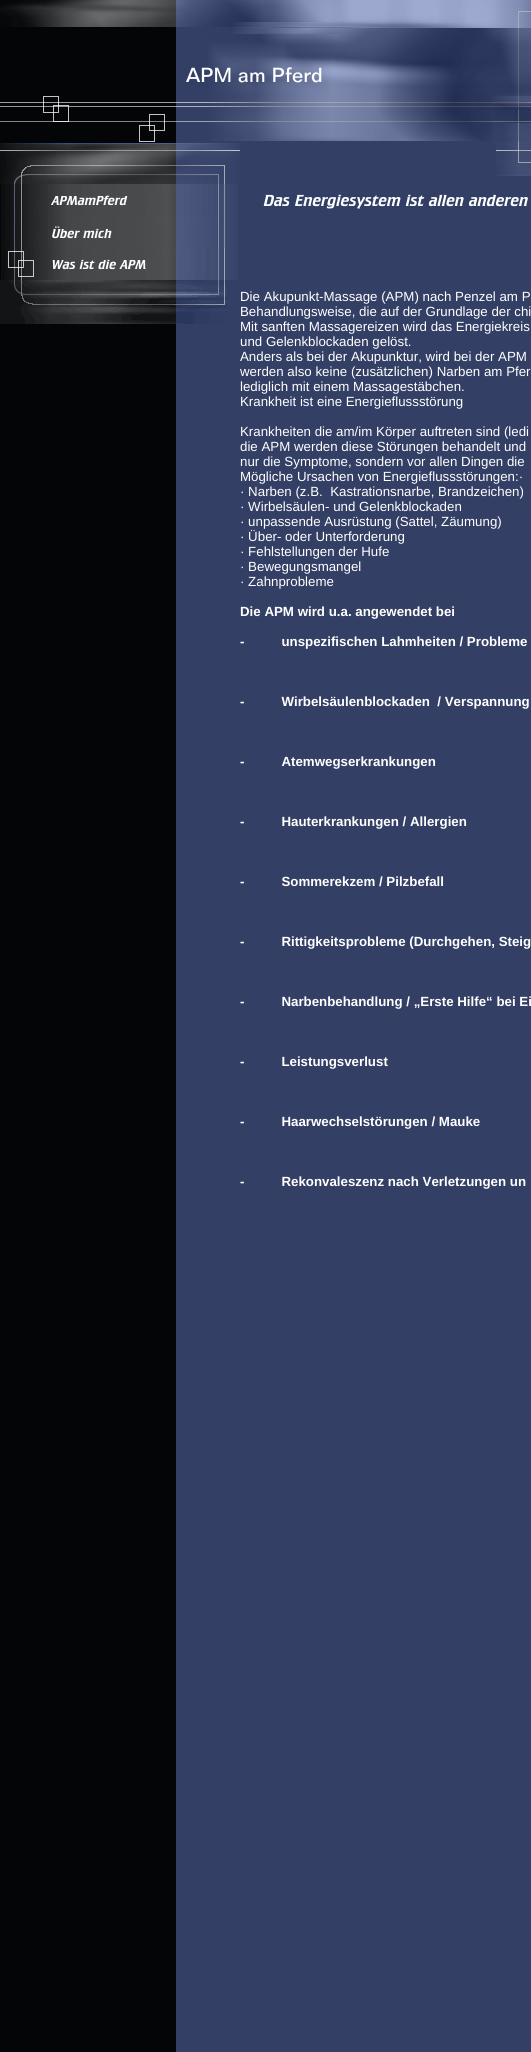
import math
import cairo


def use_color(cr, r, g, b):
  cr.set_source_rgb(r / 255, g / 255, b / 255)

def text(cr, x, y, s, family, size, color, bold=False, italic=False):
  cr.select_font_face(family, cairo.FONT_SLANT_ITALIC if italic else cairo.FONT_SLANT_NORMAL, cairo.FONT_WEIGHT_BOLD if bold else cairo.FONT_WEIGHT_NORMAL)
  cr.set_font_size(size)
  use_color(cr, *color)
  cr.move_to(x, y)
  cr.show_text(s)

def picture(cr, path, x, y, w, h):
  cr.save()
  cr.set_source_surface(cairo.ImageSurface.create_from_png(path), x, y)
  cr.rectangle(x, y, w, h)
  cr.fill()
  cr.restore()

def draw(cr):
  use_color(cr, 255, 255, 255)
  cr.paint()
  picture(cr, "img_01.png", 0, 27, 531, 2025)
  picture(cr, "img_02.png", 0, 0, 176, 27)
  picture(cr, "img_03.png", 176, 0, 320, 64)
  picture(cr, "img_04.png", 496, 0, 35, 176)
  picture(cr, "img_05.png", 186, 64, 310, 24)
  picture(cr, "img_06.png", 0, 96, 176, 48)
  picture(cr, "img_07.png", 176, 88, 320, 56)
  picture(cr, "img_08.png", 0, 144, 176, 40)
  picture(cr, "img_09.png", 176, 144, 64, 40)
  picture(cr, "img_10.png", 1, 184, 237, 32)
  picture(cr, "img_11.png", 1, 216, 237, 32)
  picture(cr, "img_12.png", 1, 248, 237, 32)
  picture(cr, "img_13.png", 0, 280, 227, 44)
  picture(cr, "img_14.png", 263, 194, 265, 15)
  text(cr, 240, 301, "Die Akupunkt-Massage (APM) nach Penzel am P", "Liberation Sans", 13.3, (255, 255, 255))
  text(cr, 240, 316, "Behandlungsweise, die auf der Grundlage der chi", "Liberation Sans", 13.3, (255, 255, 255))
  text(cr, 240, 331, "Mit sanften Massagereizen wird das Energiekreis", "Liberation Sans", 13.3, (255, 255, 255))
  text(cr, 240, 346, "und Gelenkblockaden gelöst.", "Liberation Sans", 13.3, (255, 255, 255))
  text(cr, 240, 361, "Anders als bei der Akupunktur, wird bei der APM", "Liberation Sans", 13.3, (255, 255, 255))
  text(cr, 240, 376, "werden also keine (zusätzlichen) Narben am Pfer", "Liberation Sans", 13.3, (255, 255, 255))
  text(cr, 240, 391, "lediglich mit einem Massagestäbchen.", "Liberation Sans", 13.3, (255, 255, 255))
  text(cr, 240, 406, "Krankheit ist eine Energieflussstörung", "Liberation Sans", 13.3, (255, 255, 255))
  text(cr, 240, 436, "Krankheiten die am/im Körper auftreten sind (ledi", "Liberation Sans", 13.3, (255, 255, 255))
  text(cr, 240, 451, "die APM werden diese Störungen behandelt und", "Liberation Sans", 13.3, (255, 255, 255))
  text(cr, 240, 466, "nur die Symptome, sondern vor allen Dingen die", "Liberation Sans", 13.3, (255, 255, 255))
  text(cr, 240, 481, "Mögliche Ursachen von Energieflussstörungen:·", "Liberation Sans", 13.3, (255, 255, 255))
  text(cr, 240, 496, "· Narben (z.B.  Kastrationsnarbe, Brandzeichen)", "Liberation Sans", 13.3, (255, 255, 255))
  text(cr, 240, 511, "· Wirbelsäulen- und Gelenkblockaden", "Liberation Sans", 13.3, (255, 255, 255))
  text(cr, 240, 526, "· unpassende Ausrüstung (Sattel, Zäumung)", "Liberation Sans", 13.3, (255, 255, 255))
  text(cr, 240, 541, "· Über- oder Unterforderung", "Liberation Sans", 13.3, (255, 255, 255))
  text(cr, 240, 556, "· Fehlstellungen der Hufe", "Liberation Sans", 13.3, (255, 255, 255))
  text(cr, 240, 571, "· Bewegungsmangel", "Liberation Sans", 13.3, (255, 255, 255))
  text(cr, 240, 586, "· Zahnprobleme", "Liberation Sans", 13.3, (255, 255, 255))
  text(cr, 240, 616, "Die APM wird u.a. angewendet bei", "Liberation Sans", 13.3, (255, 255, 255), bold=True)
  text(cr, 240, 646, "-          unspezifischen Lahmheiten / Probleme", "Liberation Sans", 13.3, (255, 255, 255), bold=True)
  text(cr, 240, 706, "-          Wirbelsäulenblockaden  / Verspannung", "Liberation Sans", 13.3, (255, 255, 255), bold=True)
  text(cr, 240, 766, "-          Atemwegserkrankungen", "Liberation Sans", 13.3, (255, 255, 255), bold=True)
  text(cr, 240, 826, "-          Hauterkrankungen / Allergien", "Liberation Sans", 13.3, (255, 255, 255), bold=True)
  text(cr, 240, 886, "-          Sommerekzem / Pilzbefall", "Liberation Sans", 13.3, (255, 255, 255), bold=True)
  text(cr, 240, 946, "-          Rittigkeitsprobleme (Durchgehen, Steig", "Liberation Sans", 13.3, (255, 255, 255), bold=True)
  text(cr, 240, 1006, "-          Narbenbehandlung / „Erste Hilfe“ bei Ei", "Liberation Sans", 13.3, (255, 255, 255), bold=True)
  text(cr, 240, 1066, "-          Leistungsverlust", "Liberation Sans", 13.3, (255, 255, 255), bold=True)
  text(cr, 240, 1126, "-          Haarwechselstörungen / Mauke", "Liberation Sans", 13.3, (255, 255, 255), bold=True)
  text(cr, 240, 1186, "-          Rekonvaleszenz nach Verletzungen un", "Liberation Sans", 13.3, (255, 255, 255), bold=True)


surface = cairo.ImageSurface(cairo.FORMAT_RGB24, 531, 2052)
cr = cairo.Context(surface)
options = cairo.FontOptions()
options.set_hint_metrics(cairo.HINT_METRICS_OFF)
options.set_hint_style(cairo.HINT_STYLE_NONE)
cr.set_font_options(options)
cr.set_miter_limit(4)
draw(cr)
surface.write_to_png("out.png")
